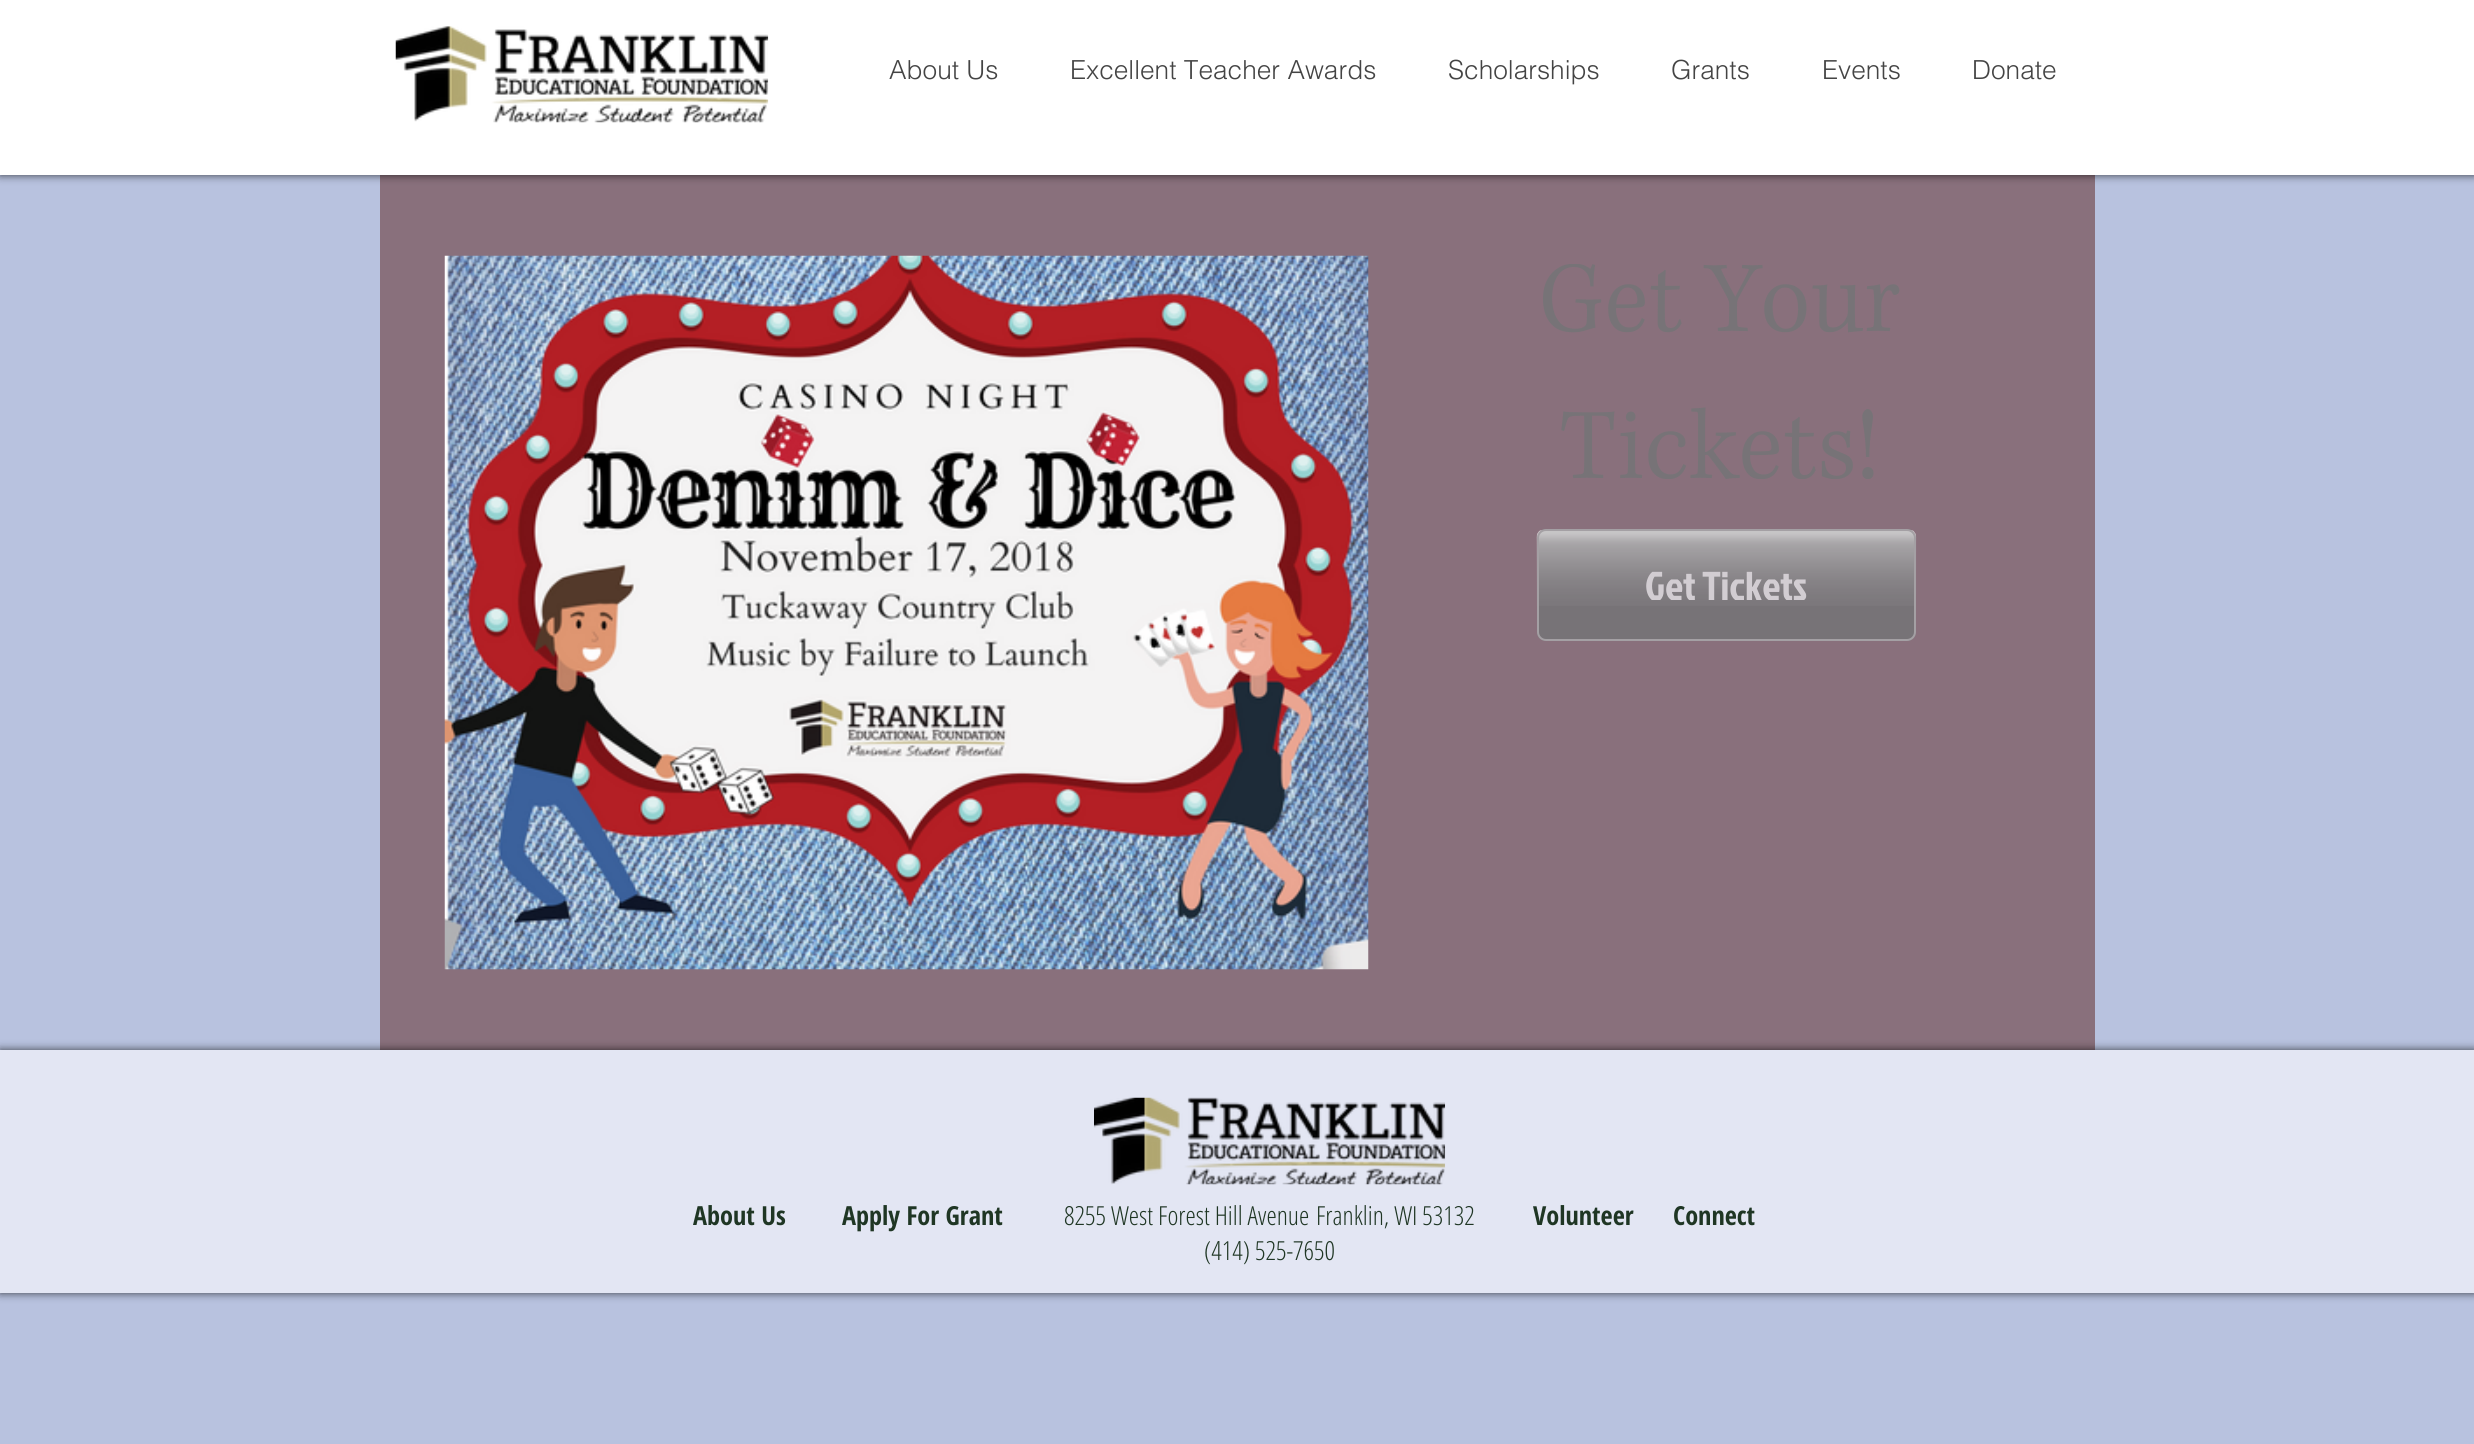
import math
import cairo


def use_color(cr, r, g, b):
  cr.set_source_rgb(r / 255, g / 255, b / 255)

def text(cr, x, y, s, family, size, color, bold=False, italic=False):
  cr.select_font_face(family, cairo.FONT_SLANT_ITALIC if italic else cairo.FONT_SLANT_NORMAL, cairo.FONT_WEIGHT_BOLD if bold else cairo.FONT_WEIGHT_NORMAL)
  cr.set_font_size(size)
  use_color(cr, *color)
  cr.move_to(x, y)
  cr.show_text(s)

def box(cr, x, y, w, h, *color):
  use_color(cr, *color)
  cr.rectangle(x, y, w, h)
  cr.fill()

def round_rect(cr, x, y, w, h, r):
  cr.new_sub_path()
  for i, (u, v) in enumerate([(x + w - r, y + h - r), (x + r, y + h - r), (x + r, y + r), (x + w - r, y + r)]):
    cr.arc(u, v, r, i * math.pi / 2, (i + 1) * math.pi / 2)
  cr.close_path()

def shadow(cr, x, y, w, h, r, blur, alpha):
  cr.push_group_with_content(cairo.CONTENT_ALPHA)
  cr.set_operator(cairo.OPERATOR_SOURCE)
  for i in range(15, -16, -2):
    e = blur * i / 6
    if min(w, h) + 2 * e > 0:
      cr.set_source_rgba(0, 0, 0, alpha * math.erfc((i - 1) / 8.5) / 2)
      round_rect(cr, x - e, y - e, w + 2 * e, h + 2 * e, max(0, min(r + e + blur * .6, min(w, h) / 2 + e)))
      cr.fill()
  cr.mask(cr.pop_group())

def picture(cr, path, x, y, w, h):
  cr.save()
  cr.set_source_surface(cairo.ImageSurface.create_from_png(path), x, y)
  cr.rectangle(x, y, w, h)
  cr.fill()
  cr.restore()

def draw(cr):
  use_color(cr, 184, 194, 223)
  cr.paint()
  box(cr, 380, 175, 1715, 875, 137, 112, 124)
  use_color(cr, 0, 0, 0)
  shadow(cr, 0, 0, 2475, 175, 0, 4.5, 0.7)
  box(cr, 0, 0, 2474, 175, 255, 255, 255)
  picture(cr, "img_01.png", 395, 26, 374, 97)
  picture(cr, "img_02.png", 444, 255, 925, 715)
  picture(cr, "img_03.png", 1543, 264, 357, 69)
  picture(cr, "img_04.png", 1561, 407, 313, 72)
  use_color(cr, 119, 115, 119)
  round_rect(cr, 1537, 529, 379, 112, 9)
  cr.fill()
  picture(cr, "img_05.png", 1536, 530, 381, 76)
  round_rect(cr, 1538, 530, 377, 110, 8)
  use_color(cr, 164, 160, 164)
  cr.stroke()
  use_color(cr, 0, 0, 0)
  shadow(cr, 0, 1050, 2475, 243, 0, 4.5, 0.7)
  box(cr, 0, 1050, 2474, 243, 227, 230, 243)
  picture(cr, "img_06.png", 1094, 1097, 352, 88)
  text(cr, 889, 79, "About Us", "helvetica Light", 26.25, (68, 68, 68))
  text(cr, 1070, 79, "Excellent Teacher Awards", "helvetica Light", 26.25, (68, 68, 68))
  text(cr, 1448, 79, "Scholarships", "helvetica Light", 26.25, (68, 68, 68))
  text(cr, 1671, 79, "Grants", "helvetica Light", 26.25, (68, 68, 68))
  text(cr, 1822, 79, "Events", "helvetica Light", 26.25, (68, 68, 68))
  text(cr, 1972, 79, "Donate", "helvetica Light", 26.25, (68, 68, 68))
  text(cr, 1645, 600, "Get Tickets", "Jockey One", 40.25, (210, 205, 210))
  text(cr, 693, 1225, "About Us", "Open Sans Condensed", 26.25, (31, 54, 36), bold=True)
  text(cr, 842, 1225, "Apply For Grant", "Open Sans Condensed", 26.25, (31, 54, 36), bold=True)
  text(cr, 1064, 1225, "8255 West Forest Hill Avenue", "Open Sans Condensed Light", 26.25, (31, 54, 36))
  text(cr, 1316, 1225, "Franklin, WI 53132", "Open Sans Condensed Light", 26.25, (31, 54, 36))
  text(cr, 1204, 1260, "(414) 525-7650", "Open Sans Condensed Light", 26.25, (31, 54, 36))
  text(cr, 1533, 1225, "Volunteer", "Open Sans Condensed", 26.25, (31, 54, 36), bold=True)
  text(cr, 1673, 1225, "Connect", "Open Sans Condensed", 26.25, (31, 54, 36), bold=True)


surface = cairo.ImageSurface(cairo.FORMAT_RGB24, 2474, 1444)
cr = cairo.Context(surface)
options = cairo.FontOptions()
options.set_hint_metrics(cairo.HINT_METRICS_OFF)
options.set_hint_style(cairo.HINT_STYLE_NONE)
cr.set_font_options(options)
cr.set_miter_limit(4)
draw(cr)
surface.write_to_png("out.png")
